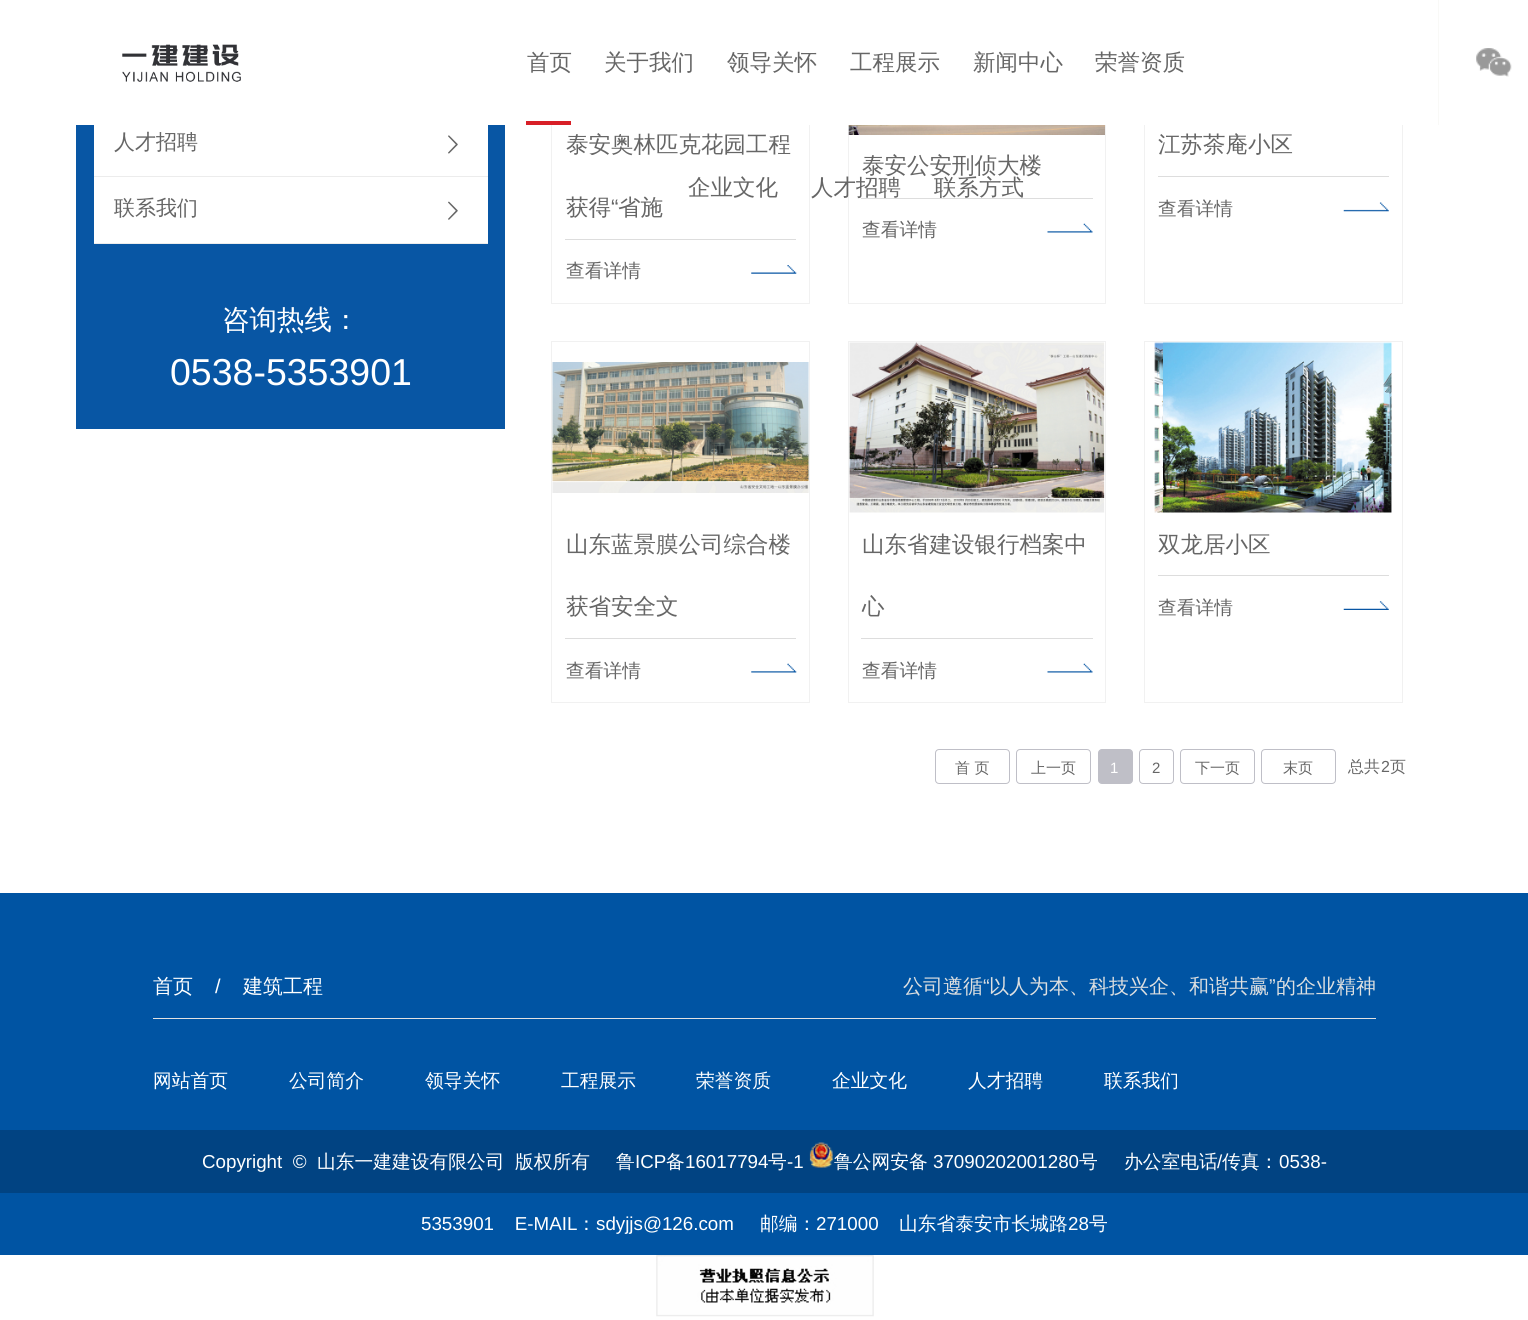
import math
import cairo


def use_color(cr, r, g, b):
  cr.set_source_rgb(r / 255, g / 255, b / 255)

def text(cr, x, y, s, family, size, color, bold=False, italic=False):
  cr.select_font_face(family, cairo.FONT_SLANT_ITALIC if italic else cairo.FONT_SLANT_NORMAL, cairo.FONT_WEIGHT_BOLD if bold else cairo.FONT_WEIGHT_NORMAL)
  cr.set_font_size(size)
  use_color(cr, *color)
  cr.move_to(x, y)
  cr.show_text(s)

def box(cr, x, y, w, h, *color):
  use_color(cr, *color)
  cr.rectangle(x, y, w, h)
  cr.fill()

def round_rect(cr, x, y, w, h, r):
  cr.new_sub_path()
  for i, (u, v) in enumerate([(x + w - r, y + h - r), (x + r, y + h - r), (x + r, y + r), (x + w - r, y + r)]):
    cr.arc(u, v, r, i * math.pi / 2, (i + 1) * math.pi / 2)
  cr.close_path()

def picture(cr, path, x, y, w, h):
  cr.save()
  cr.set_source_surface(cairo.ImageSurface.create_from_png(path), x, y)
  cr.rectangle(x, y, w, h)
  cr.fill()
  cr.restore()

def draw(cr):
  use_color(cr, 255, 255, 255)
  cr.paint()
  cr.rectangle(551.5, -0.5, 258, 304)
  use_color(cr, 241, 241, 241)
  cr.set_line_width(1)
  cr.stroke()
  cr.rectangle(848.5, -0.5, 257, 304)
  cr.stroke()
  cr.rectangle(1144.5, -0.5, 258, 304)
  cr.stroke()
  box(cr, 551, 0, 852, 125, 255, 255, 255)
  picture(cr, "img_01.png", 122, 44, 119, 38)
  box(cr, 526, 121, 45, 4, 216, 31, 39)
  box(cr, 1438, 0, 1, 125, 249, 249, 247)
  picture(cr, "img_02.png", 1476, 48, 36, 29)
  box(cr, 76, 125, 429, 304, 8, 86, 164)
  box(cr, 94, 125, 394, 118, 255, 255, 255)
  box(cr, 94, 176, 394, 1, 236, 236, 236)
  picture(cr, "img_03.png", 448, 135, 10, 19)
  box(cr, 94, 243, 394, 1, 236, 236, 236)
  picture(cr, "img_04.png", 448, 201, 10, 19)
  box(cr, 565, 239, 231, 1, 221, 221, 221)
  picture(cr, "img_05.png", 751, 265, 46, 9)
  picture(cr, "img_06.png", 848, 125, 257, 10)
  box(cr, 861, 198, 232, 1, 221, 221, 221)
  picture(cr, "img_07.png", 1047, 223, 46, 10)
  box(cr, 1158, 176, 231, 1, 221, 221, 221)
  picture(cr, "img_08.png", 1343, 202, 46, 10)
  cr.rectangle(551.5, 341.5, 258, 361)
  use_color(cr, 241, 241, 241)
  cr.stroke()
  picture(cr, "img_09.png", 552, 362, 257, 131)
  box(cr, 565, 638, 231, 1, 221, 221, 221)
  picture(cr, "img_10.png", 751, 663, 46, 10)
  cr.rectangle(848.5, 341.5, 257, 361)
  use_color(cr, 241, 241, 241)
  cr.stroke()
  picture(cr, "img_11.png", 849, 342, 256, 171)
  box(cr, 861, 638, 232, 1, 221, 221, 221)
  picture(cr, "img_07.png", 1047, 663, 46, 10)
  cr.rectangle(1144.5, 341.5, 258, 361)
  use_color(cr, 241, 241, 241)
  cr.stroke()
  picture(cr, "img_12.png", 1154, 342, 238, 171)
  box(cr, 1158, 575, 231, 1, 221, 221, 221)
  picture(cr, "img_13.png", 1343, 601, 46, 9)
  round_rect(cr, 935.5, 749.5, 74, 34, 3.5)
  use_color(cr, 191, 191, 199)
  cr.stroke()
  round_rect(cr, 1016.5, 749.5, 74, 34, 3.5)
  cr.stroke()
  round_rect(cr, 1098.5, 749.5, 34, 34, 3.5)
  cr.fill_preserve()
  cr.stroke()
  round_rect(cr, 1139.5, 749.5, 34, 34, 3.5)
  cr.stroke()
  round_rect(cr, 1180.5, 749.5, 74, 34, 3.5)
  cr.stroke()
  round_rect(cr, 1261.5, 749.5, 74, 34, 3.5)
  cr.stroke()
  box(cr, 0, 893, 1528, 362, 0, 84, 163)
  box(cr, 153, 1018, 1223, 1, 226, 226, 226)
  box(cr, 0, 1130, 1528, 63, 1, 67, 130)
  picture(cr, "img_14.png", 809, 1142, 24, 26)
  picture(cr, "img_15.png", 656, 1255, 218, 62)
  text(cr, 527, 70, "首页", "WenQuanYi Zen Hei Medium", 22.5, (102, 102, 102))
  text(cr, 604, 70, "关于我们", "WenQuanYi Zen Hei Medium", 22.5, (102, 102, 102))
  text(cr, 727, 70, "领导关怀", "WenQuanYi Zen Hei Medium", 22.5, (102, 102, 102))
  text(cr, 850, 70, "工程展示", "WenQuanYi Zen Hei Medium", 22.5, (102, 102, 102))
  text(cr, 973, 70, "新闻中心", "WenQuanYi Zen Hei Medium", 22.5, (102, 102, 102))
  text(cr, 1095, 70, "荣誉资质", "WenQuanYi Zen Hei Medium", 22.5, (102, 102, 102))
  text(cr, 688, 195, "企业文化", "WenQuanYi Zen Hei Medium", 22.5, (102, 102, 102))
  text(cr, 811, 195, "人才招聘", "WenQuanYi Zen Hei Medium", 22.5, (102, 102, 102))
  text(cr, 934, 195, "联系方式", "WenQuanYi Zen Hei Medium", 22.5, (102, 102, 102))
  text(cr, 114, 149, "人才招聘", "WenQuanYi Zen Hei Medium", 21, (102, 102, 102))
  text(cr, 114, 215, "联系我们", "WenQuanYi Zen Hei Medium", 21, (102, 102, 102))
  text(cr, 222, 329, "咨询热线：", "WenQuanYi Zen Hei Medium", 27.5, (255, 255, 255))
  text(cr, 170, 385, "0538-5353901", "Liberation Sans", 37.5, (255, 255, 255))
  text(cr, 566, 152, "泰安奥林匹克花园工程", "WenQuanYi Zen Hei Medium", 22.5, (102, 102, 102))
  text(cr, 566, 215, "获得", "WenQuanYi Zen Hei Medium", 22.5, (102, 102, 102))
  text(cr, 611, 215, "“", "Liberation Sans", 22.5, (102, 102, 102))
  text(cr, 618, 215, "省施", "WenQuanYi Zen Hei Medium", 22.5, (102, 102, 102))
  text(cr, 566, 277, "查看详情", "WenQuanYi Zen Hei Medium", 18.75, (102, 102, 102))
  text(cr, 862, 173, "泰安公安刑侦大楼", "WenQuanYi Zen Hei Medium", 22.5, (102, 102, 102))
  text(cr, 862, 236, "查看详情", "WenQuanYi Zen Hei Medium", 18.75, (102, 102, 102))
  text(cr, 1158, 152, "江苏茶庵小区", "WenQuanYi Zen Hei Medium", 22.5, (102, 102, 102))
  text(cr, 1158, 215, "查看详情", "WenQuanYi Zen Hei Medium", 18.75, (102, 102, 102))
  text(cr, 566, 552, "山东蓝景膜公司综合楼", "WenQuanYi Zen Hei Medium", 22.5, (102, 102, 102))
  text(cr, 566, 614, "获省安全文", "WenQuanYi Zen Hei Medium", 22.5, (102, 102, 102))
  text(cr, 566, 677, "查看详情", "WenQuanYi Zen Hei Medium", 18.75, (102, 102, 102))
  text(cr, 862, 552, "山东省建设银行档案中", "WenQuanYi Zen Hei Medium", 22.5, (102, 102, 102))
  text(cr, 862, 614, "心", "WenQuanYi Zen Hei Medium", 22.5, (102, 102, 102))
  text(cr, 862, 677, "查看详情", "WenQuanYi Zen Hei Medium", 18.75, (102, 102, 102))
  text(cr, 1158, 552, "双龙居小区", "WenQuanYi Zen Hei Medium", 22.5, (102, 102, 102))
  text(cr, 1158, 614, "查看详情", "WenQuanYi Zen Hei Medium", 18.75, (102, 102, 102))
  text(cr, 955, 773, "首 页", "WenQuanYi Zen Hei Medium", 15, (102, 102, 102))
  text(cr, 1031, 773, "上一页", "WenQuanYi Zen Hei Medium", 15, (102, 102, 102))
  text(cr, 1110, 773, "1", "Liberation Sans", 15, (255, 255, 255))
  text(cr, 1152, 773, "2", "Liberation Sans", 15, (102, 102, 102))
  text(cr, 1195, 773, "下一页", "WenQuanYi Zen Hei Medium", 15, (102, 102, 102))
  text(cr, 1283, 773, "末页", "WenQuanYi Zen Hei Medium", 15, (102, 102, 102))
  text(cr, 1348, 772, "总共", "WenQuanYi Zen Hei Medium", 16, (102, 102, 102))
  text(cr, 1381, 772, "2", "Liberation Sans", 16, (102, 102, 102))
  text(cr, 1390, 772, "页", "WenQuanYi Zen Hei Medium", 16, (102, 102, 102))
  text(cr, 153, 993, "首页", "WenQuanYi Zen Hei Medium", 20, (255, 255, 255))
  text(cr, 215, 993, "/", "Liberation Sans", 20, (255, 255, 255))
  text(cr, 243, 993, "建筑工程", "WenQuanYi Zen Hei Medium", 20, (255, 255, 255))
  text(cr, 903, 993, "公司遵循", "WenQuanYi Zen Hei Medium", 20, (221, 223, 224))
  text(cr, 983, 993, "“", "Liberation Sans", 20, (221, 223, 224))
  text(cr, 989, 993, "以人为本、科技兴企、和谐共赢", "WenQuanYi Zen Hei Medium", 20, (221, 223, 224))
  text(cr, 1269, 993, "”", "Liberation Sans", 20, (221, 223, 224))
  text(cr, 1276, 993, "的企业精神", "WenQuanYi Zen Hei Medium", 20, (221, 223, 224))
  text(cr, 153, 1087, "网站首页", "WenQuanYi Zen Hei Medium", 18.75, (255, 255, 255))
  text(cr, 289, 1087, "公司简介", "WenQuanYi Zen Hei Medium", 18.75, (255, 255, 255))
  text(cr, 425, 1087, "领导关怀", "WenQuanYi Zen Hei Medium", 18.75, (255, 255, 255))
  text(cr, 561, 1087, "工程展示", "WenQuanYi Zen Hei Medium", 18.75, (255, 255, 255))
  text(cr, 696, 1087, "荣誉资质", "WenQuanYi Zen Hei Medium", 18.75, (255, 255, 255))
  text(cr, 832, 1087, "企业文化", "WenQuanYi Zen Hei Medium", 18.75, (255, 255, 255))
  text(cr, 968, 1087, "人才招聘", "WenQuanYi Zen Hei Medium", 18.75, (255, 255, 255))
  text(cr, 1104, 1087, "联系我们", "WenQuanYi Zen Hei Medium", 18.75, (255, 255, 255))
  text(cr, 202, 1168, "Copyright  ©", "Liberation Sans", 18.75, (255, 255, 255))
  text(cr, 317, 1168, "山东一建建设有限公司", "WenQuanYi Zen Hei Medium", 18.75, (255, 255, 255))
  text(cr, 515, 1168, "版权所有", "WenQuanYi Zen Hei Medium", 18.75, (255, 255, 255))
  text(cr, 616, 1168, "鲁", "WenQuanYi Zen Hei Medium", 18.75, (255, 255, 255))
  text(cr, 635, 1168, "ICP", "Liberation Sans", 18.75, (255, 255, 255))
  text(cr, 666, 1168, "备", "WenQuanYi Zen Hei Medium", 18.75, (255, 255, 255))
  text(cr, 685, 1168, "16017794", "Liberation Sans", 18.75, (255, 255, 255))
  text(cr, 768, 1168, "号", "WenQuanYi Zen Hei Medium", 18.75, (255, 255, 255))
  text(cr, 787, 1168, "-1", "Liberation Sans", 18.75, (255, 255, 255))
  text(cr, 834, 1168, "鲁公网安备", "WenQuanYi Zen Hei Medium", 18.75, (255, 255, 255))
  text(cr, 933, 1168, "37090202001280", "Liberation Sans", 18.75, (255, 255, 255))
  text(cr, 1079, 1168, "号", "WenQuanYi Zen Hei Medium", 18.75, (255, 255, 255))
  text(cr, 1124, 1168, "办公室电话", "WenQuanYi Zen Hei Medium", 18.75, (255, 255, 255))
  text(cr, 1217, 1168, "/", "Liberation Sans", 18.75, (255, 255, 255))
  text(cr, 1222, 1168, "传真：", "WenQuanYi Zen Hei Medium", 18.75, (255, 255, 255))
  text(cr, 1279, 1168, "0538-", "Liberation Sans", 18.75, (255, 255, 255))
  text(cr, 421, 1230, "5353901    E-MAIL", "Liberation Sans", 18.75, (255, 255, 255))
  text(cr, 577, 1230, "：", "WenQuanYi Zen Hei Medium", 18.75, (255, 255, 255))
  text(cr, 596, 1230, "sdyjjs@126.com", "Liberation Sans", 18.75, (255, 255, 255))
  text(cr, 760, 1230, "邮编：", "WenQuanYi Zen Hei Medium", 18.75, (255, 255, 255))
  text(cr, 816, 1230, "271000", "Liberation Sans", 18.75, (255, 255, 255))
  text(cr, 899, 1230, "山东省泰安市长城路", "WenQuanYi Zen Hei Medium", 18.75, (255, 255, 255))
  text(cr, 1068, 1230, "28", "Liberation Sans", 18.75, (255, 255, 255))
  text(cr, 1089, 1230, "号", "WenQuanYi Zen Hei Medium", 18.75, (255, 255, 255))


surface = cairo.ImageSurface(cairo.FORMAT_RGB24, 1528, 1320)
cr = cairo.Context(surface)
options = cairo.FontOptions()
options.set_hint_metrics(cairo.HINT_METRICS_OFF)
options.set_hint_style(cairo.HINT_STYLE_NONE)
cr.set_font_options(options)
cr.set_miter_limit(4)
draw(cr)
surface.write_to_png("out.png")
